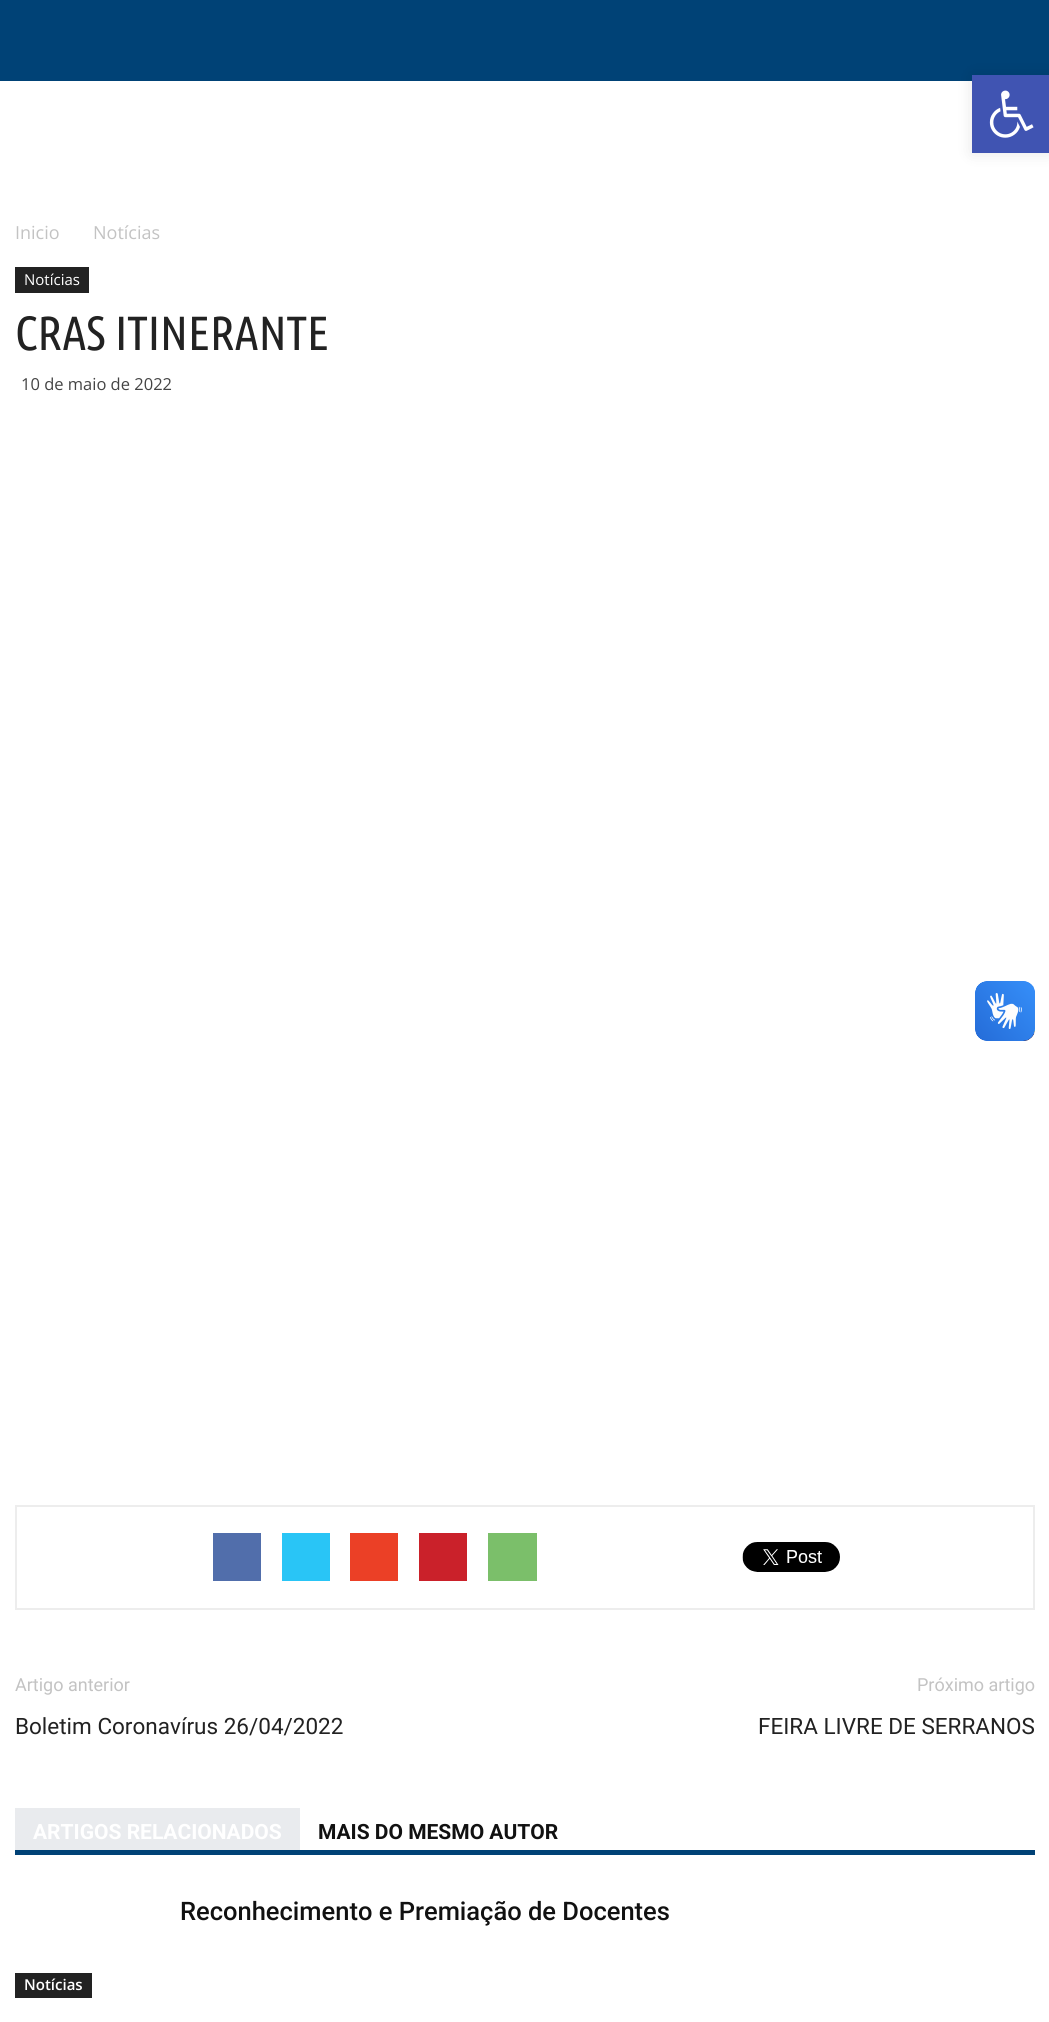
import math
import cairo


def use_color(cr, r, g, b):
  cr.set_source_rgb(r / 255, g / 255, b / 255)

def text(cr, x, y, s, family, size, color, bold=False, italic=False):
  cr.select_font_face(family, cairo.FONT_SLANT_ITALIC if italic else cairo.FONT_SLANT_NORMAL, cairo.FONT_WEIGHT_BOLD if bold else cairo.FONT_WEIGHT_NORMAL)
  cr.set_font_size(size)
  use_color(cr, *color)
  cr.move_to(x, y)
  cr.show_text(s)

def box(cr, x, y, w, h, *color):
  use_color(cr, *color)
  cr.rectangle(x, y, w, h)
  cr.fill()

def round_rect(cr, x, y, w, h, r):
  cr.new_sub_path()
  for i, (u, v) in enumerate([(x + w - r, y + h - r), (x + r, y + h - r), (x + r, y + r), (x + w - r, y + r)]):
    cr.arc(u, v, r, i * math.pi / 2, (i + 1) * math.pi / 2)
  cr.close_path()

def shadow(cr, x, y, w, h, r, blur, alpha):
  cr.push_group_with_content(cairo.CONTENT_ALPHA)
  cr.set_operator(cairo.OPERATOR_SOURCE)
  for i in range(15, -16, -2):
    e = blur * i / 6
    if min(w, h) + 2 * e > 0:
      cr.set_source_rgba(0, 0, 0, alpha * math.erfc((i - 1) / 8.5) / 2)
      round_rect(cr, x - e, y - e, w + 2 * e, h + 2 * e, max(0, min(r + e + blur * .6, min(w, h) / 2 + e)))
      cr.fill()
  cr.mask(cr.pop_group())

def picture(cr, path, x, y, w, h):
  cr.save()
  cr.set_source_surface(cairo.ImageSurface.create_from_png(path), x, y)
  cr.rectangle(x, y, w, h)
  cr.fill()
  cr.restore()

def draw(cr):
  use_color(cr, 255, 255, 255)
  cr.paint()
  box(cr, 0, 0, 1049, 81, 0, 66, 118)
  use_color(cr, 0, 0, 0)
  shadow(cr, 972, 75, 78, 78, 0, 7.5, 0.1)
  box(cr, 972, 75, 77, 78, 64, 84, 178)
  picture(cr, "img_01.png", 989, 90, 45, 48)
  box(cr, 15, 267, 74, 26, 34, 34, 34)
  cr.rectangle(16, 1506, 1018, 103)
  use_color(cr, 237, 237, 237)
  cr.stroke()
  box(cr, 213, 1533, 48, 48, 81, 110, 171)
  box(cr, 282, 1533, 48, 48, 41, 197, 246)
  box(cr, 350, 1533, 48, 48, 235, 64, 38)
  box(cr, 419, 1533, 48, 48, 202, 33, 42)
  box(cr, 488, 1533, 49, 48, 123, 191, 106)
  picture(cr, "img_02.png", 742, 1542, 98, 30)
  box(cr, 15, 1850, 1020, 5, 0, 66, 118)
  box(cr, 15, 1808, 285, 42, 233, 235, 238)
  box(cr, 15, 1973, 77, 25, 34, 34, 34)
  picture(cr, "img_03.png", 975, 981, 60, 60)
  picture(cr, "img_04.png", 975, 981, 60, 60)
  text(cr, 15, 239, "Inicio", "Open Sans", 18, (195, 195, 195))
  text(cr, 93, 239, "Notícias", "Open Sans", 18, (195, 195, 195))
  text(cr, 24, 285, "Notícias", "Open Sans", 15, (255, 255, 255))
  text(cr, 15, 350, "CRAS ITINERANTE", "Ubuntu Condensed", 48, (34, 34, 34))
  text(cr, 21, 390, "10 de maio de 2022", "Open Sans", 16.5, (68, 68, 68))
  text(cr, 15, 1691, "Artigo anterior", "Roboto", 18, (195, 195, 195))
  text(cr, 15, 1734, "Boletim Coronavírus 26/04/2022", "Roboto", 22.5, (34, 34, 34))
  text(cr, 917, 1691, "Próximo artigo", "Roboto", 18, (195, 195, 195))
  text(cr, 758, 1734, "FEIRA LIVRE DE SERRANOS", "Roboto", 22.5, (34, 34, 34))
  text(cr, 33, 1839, "ARTIGOS RELACIONADOS", "Roboto", 21, (255, 255, 255), bold=True)
  text(cr, 318, 1839, "MAIS DO MESMO AUTOR", "Roboto", 21, (17, 17, 17), bold=True)
  text(cr, 180, 1920, "Reconhecimento e Premiação de Docentes", "Roboto Medium", 25.5, (17, 17, 17))
  text(cr, 24, 1990, "Notícias", "Open Sans SemiBold", 15, (255, 255, 255))


surface = cairo.ImageSurface(cairo.FORMAT_RGB24, 1049, 2022)
cr = cairo.Context(surface)
options = cairo.FontOptions()
options.set_hint_metrics(cairo.HINT_METRICS_OFF)
options.set_hint_style(cairo.HINT_STYLE_NONE)
cr.set_font_options(options)
cr.set_miter_limit(4)
draw(cr)
surface.write_to_png("out.png")
